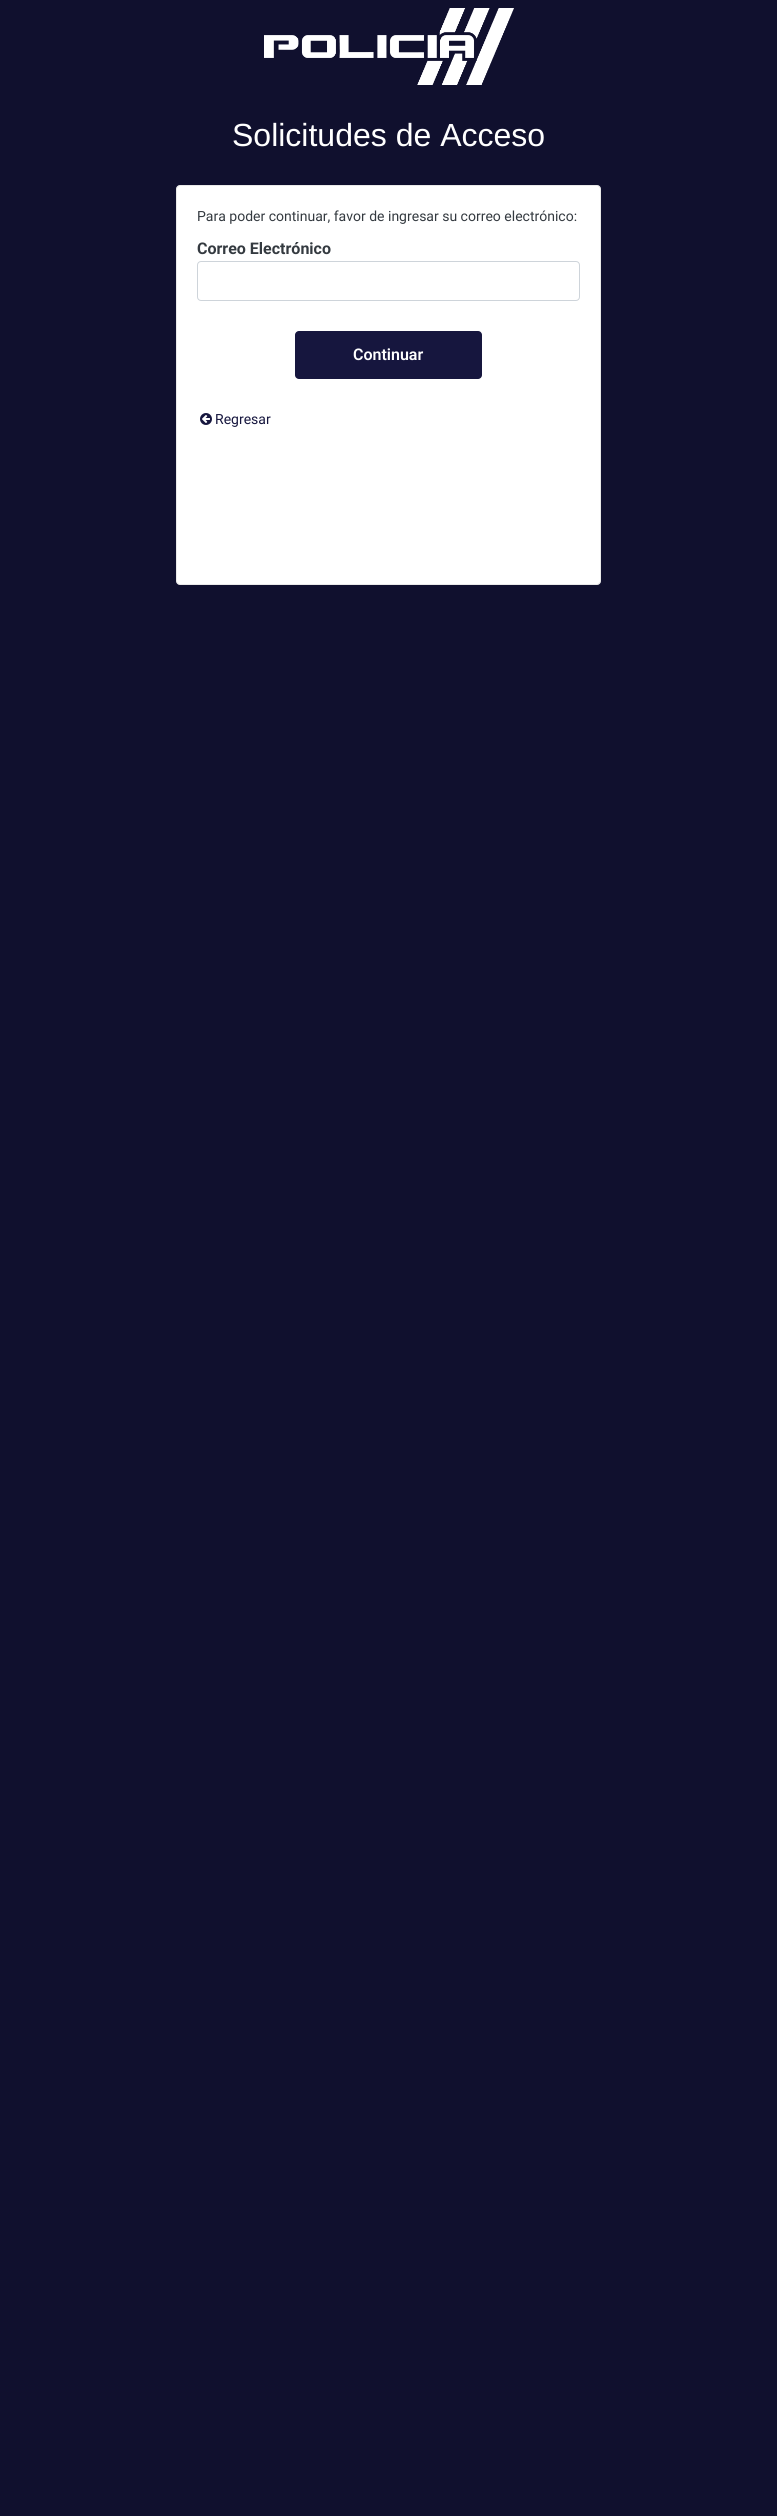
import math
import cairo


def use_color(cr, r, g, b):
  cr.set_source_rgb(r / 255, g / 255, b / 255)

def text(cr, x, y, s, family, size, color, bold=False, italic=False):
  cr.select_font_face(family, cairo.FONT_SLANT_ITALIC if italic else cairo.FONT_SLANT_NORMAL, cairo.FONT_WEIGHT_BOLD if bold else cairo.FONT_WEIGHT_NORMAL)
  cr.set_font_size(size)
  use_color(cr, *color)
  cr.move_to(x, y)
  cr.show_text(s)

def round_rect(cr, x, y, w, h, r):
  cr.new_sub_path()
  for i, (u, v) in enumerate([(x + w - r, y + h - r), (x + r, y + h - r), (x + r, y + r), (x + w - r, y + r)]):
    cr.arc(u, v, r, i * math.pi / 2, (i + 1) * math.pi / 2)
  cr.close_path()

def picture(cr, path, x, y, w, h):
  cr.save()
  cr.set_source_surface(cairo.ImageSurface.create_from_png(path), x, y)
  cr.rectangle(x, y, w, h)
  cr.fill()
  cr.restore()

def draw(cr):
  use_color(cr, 16, 16, 46)
  cr.paint()
  picture(cr, "img_01.png", 264, 8, 250, 77)
  use_color(cr, 255, 255, 255)
  round_rect(cr, 176.5, 185.5, 424, 399, 3.5)
  cr.fill_preserve()
  use_color(cr, 233, 233, 233)
  cr.set_line_width(1)
  cr.stroke()
  round_rect(cr, 197.5, 261.5, 382, 39, 3.5)
  use_color(cr, 206, 212, 218)
  cr.stroke()
  use_color(cr, 22, 22, 62)
  round_rect(cr, 295, 331, 187, 48, 4)
  cr.fill()
  picture(cr, "img_02.png", 200, 413, 12, 12)
  text(cr, 232, 146, "Solicitudes de Acceso", "Liberation Sans", 32, (255, 255, 255))
  text(cr, 197, 221, "Para poder continuar, favor de ingresar su correo electrónico:", "Roboto", 14, (52, 58, 64))
  text(cr, 197, 254, "Correo Electrónico", "Roboto", 16, (52, 58, 64), bold=True)
  text(cr, 353, 360, "Continuar", "Roboto SemiBold", 16, (255, 255, 255))
  text(cr, 215, 424, "Regresar", "Roboto", 14, (22, 22, 62))


surface = cairo.ImageSurface(cairo.FORMAT_RGB24, 777, 2516)
cr = cairo.Context(surface)
options = cairo.FontOptions()
options.set_hint_metrics(cairo.HINT_METRICS_OFF)
options.set_hint_style(cairo.HINT_STYLE_NONE)
cr.set_font_options(options)
cr.set_miter_limit(4)
draw(cr)
surface.write_to_png("out.png")
